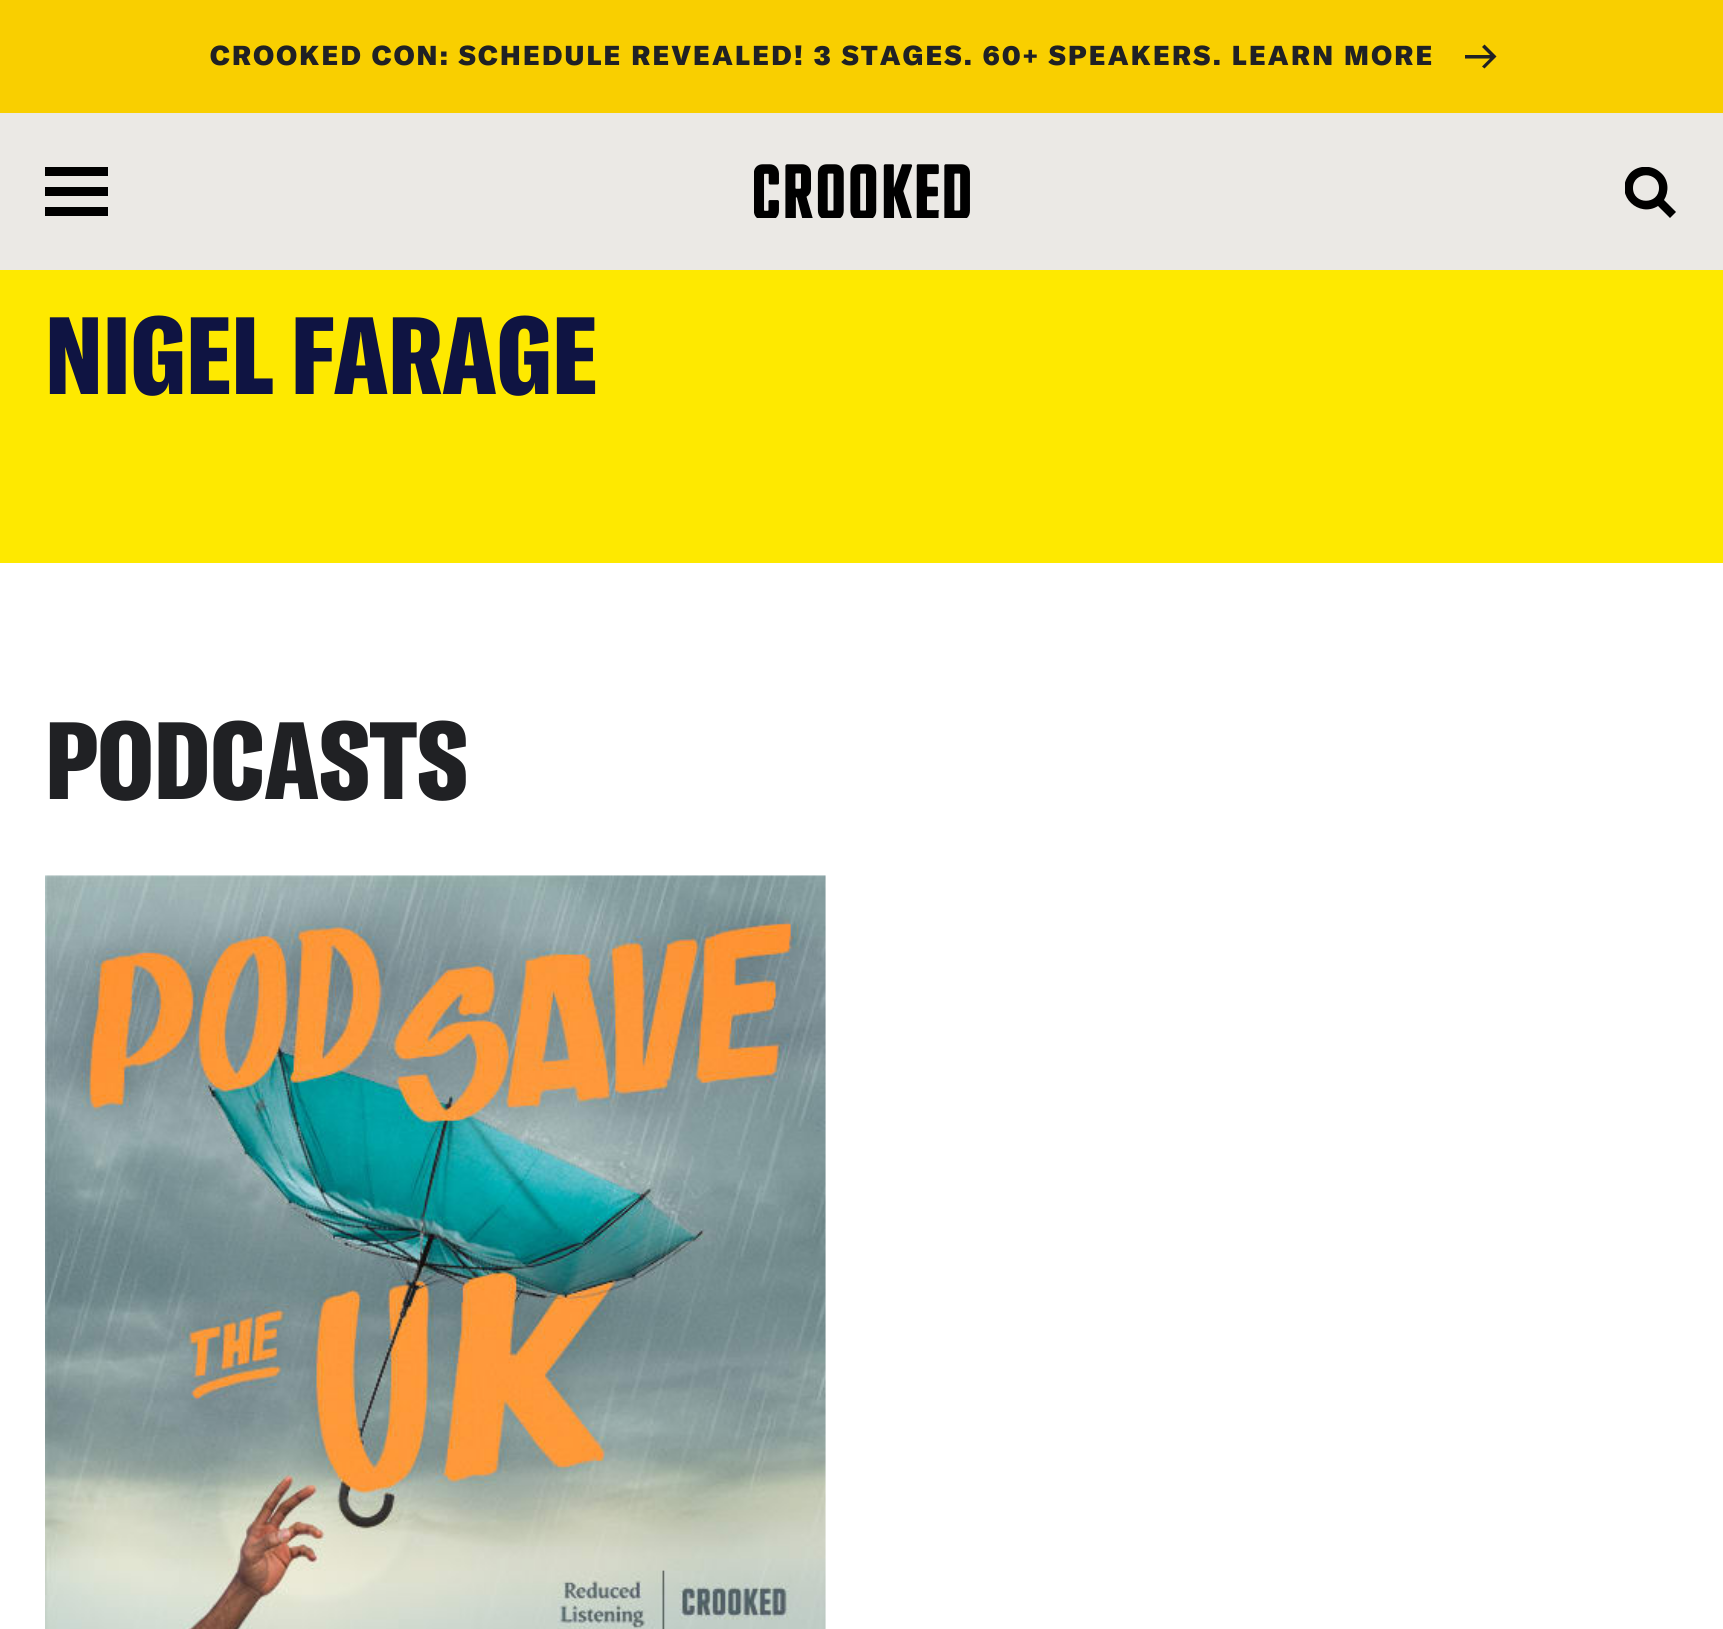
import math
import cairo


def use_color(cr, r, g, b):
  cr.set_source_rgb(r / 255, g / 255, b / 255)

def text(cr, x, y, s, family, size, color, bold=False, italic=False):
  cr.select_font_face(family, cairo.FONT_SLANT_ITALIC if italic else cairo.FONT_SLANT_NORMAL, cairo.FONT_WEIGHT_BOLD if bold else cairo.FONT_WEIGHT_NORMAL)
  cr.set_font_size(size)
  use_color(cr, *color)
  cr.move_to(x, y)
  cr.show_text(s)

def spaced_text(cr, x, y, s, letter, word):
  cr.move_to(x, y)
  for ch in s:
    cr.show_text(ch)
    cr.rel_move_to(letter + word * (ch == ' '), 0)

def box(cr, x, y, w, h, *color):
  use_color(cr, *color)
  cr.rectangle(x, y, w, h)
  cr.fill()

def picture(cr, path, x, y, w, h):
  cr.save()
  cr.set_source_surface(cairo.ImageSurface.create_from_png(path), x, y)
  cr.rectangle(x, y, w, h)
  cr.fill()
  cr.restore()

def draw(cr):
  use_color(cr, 255, 255, 255)
  cr.paint()
  box(cr, 0, 0, 1723, 113, 249, 207, 0)
  use_color(cr, 32, 33, 36)
  cr.new_path()
  cr.move_to(1484.5, 44.5)
  cr.line_to(1496.5, 56.5)
  cr.line_to(1484.5, 68.5)
  cr.line_to(1482, 66.5)
  cr.line_to(1490, 58.5)
  cr.line_to(1465, 58.5)
  cr.line_to(1465, 55)
  cr.line_to(1490, 55)
  cr.line_to(1482, 47)
  cr.close_path()
  cr.fill()
  box(cr, 0, 113, 1723, 157, 235, 233, 229)
  box(cr, 45, 187, 63, 9, 0, 0, 0)
  box(cr, 45, 167, 63, 9, 0, 0, 0)
  box(cr, 45, 207, 63, 9, 0, 0, 0)
  picture(cr, "img_01.png", 754, 164, 216, 54)
  cr.save()
  cr.rectangle(1625, 167, 51, 51)
  cr.clip()
  cr.new_path()
  cr.move_to(1676, 212)
  cr.line_to(1664, 200)
  cr.curve_to(1669, 192, 1669, 180, 1661, 173)
  cr.curve_to(1656, 168, 1649, 166, 1642, 167)
  cr.curve_to(1636, 168, 1631, 171, 1628, 176)
  cr.curve_to(1615, 196, 1639, 218, 1658, 206)
  cr.line_to(1670, 218)
  cr.close_path()
  cr.move_to(1633, 188)
  cr.curve_to(1633, 171, 1659, 171, 1659, 188)
  cr.curve_to(1659, 205, 1633, 205, 1633, 188)
  cr.close_path()
  cr.fill()
  cr.restore()
  box(cr, 0, 270, 1723, 293, 254, 233, 0)
  picture(cr, "img_02.png", 45, 875, 781, 754)
  cr.select_font_face("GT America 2 Black")
  cr.set_font_size(27)
  use_color(cr, 32, 33, 36)
  spaced_text(cr, 210, 65, "CROOKED CON: SCHEDULE REVEALED! 3 STAGES. 60+ SPEAKERS. LEARN MORE", 2.25, 0)
  text(cr, 45, 394, "NIGEL FARAGE", "GT America Black", 108, (15, 20, 66))
  text(cr, 45, 799, "PODCASTS", "GT America Black", 108, (32, 33, 36))


surface = cairo.ImageSurface(cairo.FORMAT_RGB24, 1723, 1629)
cr = cairo.Context(surface)
options = cairo.FontOptions()
options.set_hint_metrics(cairo.HINT_METRICS_OFF)
options.set_hint_style(cairo.HINT_STYLE_NONE)
cr.set_font_options(options)
cr.set_miter_limit(4)
draw(cr)
surface.write_to_png("out.png")
